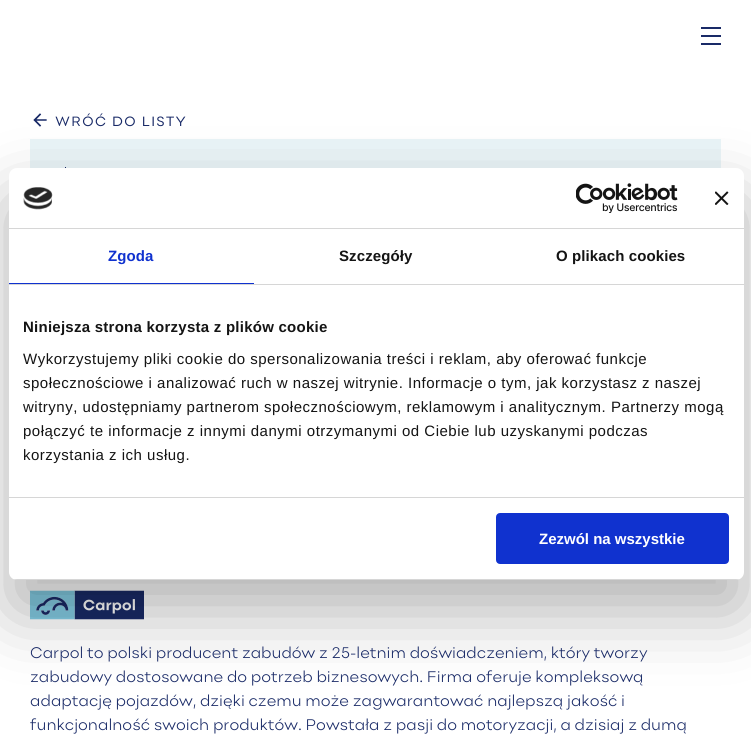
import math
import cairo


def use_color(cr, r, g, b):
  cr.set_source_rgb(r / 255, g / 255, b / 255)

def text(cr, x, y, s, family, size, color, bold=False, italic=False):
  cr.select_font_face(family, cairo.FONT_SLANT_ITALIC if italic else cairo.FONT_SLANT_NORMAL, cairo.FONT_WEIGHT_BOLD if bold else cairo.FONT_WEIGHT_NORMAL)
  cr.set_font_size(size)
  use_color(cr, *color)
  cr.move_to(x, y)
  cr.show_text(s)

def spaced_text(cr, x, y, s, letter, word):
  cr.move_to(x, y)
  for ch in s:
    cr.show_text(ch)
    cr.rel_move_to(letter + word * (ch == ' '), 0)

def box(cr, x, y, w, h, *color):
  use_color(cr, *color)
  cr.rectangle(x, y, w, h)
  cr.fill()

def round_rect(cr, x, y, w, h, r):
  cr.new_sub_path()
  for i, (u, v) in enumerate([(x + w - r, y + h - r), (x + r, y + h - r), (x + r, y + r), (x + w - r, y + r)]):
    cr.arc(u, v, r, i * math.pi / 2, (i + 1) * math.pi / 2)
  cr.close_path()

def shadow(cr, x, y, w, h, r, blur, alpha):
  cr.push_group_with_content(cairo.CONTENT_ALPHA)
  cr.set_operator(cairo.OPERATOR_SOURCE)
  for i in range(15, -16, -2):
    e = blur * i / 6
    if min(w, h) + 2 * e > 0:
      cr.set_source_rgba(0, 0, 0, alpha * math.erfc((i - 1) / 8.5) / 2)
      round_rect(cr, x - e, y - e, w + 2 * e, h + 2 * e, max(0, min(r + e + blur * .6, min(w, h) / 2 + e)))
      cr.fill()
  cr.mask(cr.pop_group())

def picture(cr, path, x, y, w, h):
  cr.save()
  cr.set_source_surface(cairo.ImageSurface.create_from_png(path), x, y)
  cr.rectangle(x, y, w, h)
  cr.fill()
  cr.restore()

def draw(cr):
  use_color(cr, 255, 255, 255)
  cr.paint()
  box(cr, 701, 27, 20, 2, 25, 42, 103)
  box(cr, 701, 35, 20, 2, 25, 42, 103)
  box(cr, 701, 43, 20, 2, 25, 42, 103)
  picture(cr, "img_01.png", 33, 113, 14, 14)
  box(cr, 30, 139, 691, 29, 234, 245, 248)
  box(cr, 65, 167, 1, 1, 25, 42, 103)
  picture(cr, "img_02.png", 30, 590, 114, 30)
  use_color(cr, 0, 0, 0)
  shadow(cr, 9, 200, 735, 412, 8, 34, 0.3)
  use_color(cr, 255, 255, 255)
  round_rect(cr, 9, 168, 735, 412, 8)
  cr.fill()
  box(cr, 9, 228, 735, 1, 214, 214, 214)
  picture(cr, "img_03.png", 23, 187, 30, 23)
  picture(cr, "img_04.png", 576, 183, 102, 30)
  picture(cr, "img_05.png", 715, 191, 14, 14)
  box(cr, 9, 284, 735, 1, 214, 214, 214)
  box(cr, 9, 283, 245, 1, 16, 50, 207)
  box(cr, 9, 497, 735, 1, 214, 214, 214)
  cr.save()
  round_rect(cr, 9, 168, 735, 412, 8)
  cr.clip()
  box(cr, 9, 579, 735, 1, 214, 214, 214)
  cr.restore()
  use_color(cr, 16, 50, 207)
  round_rect(cr, 497, 514, 231, 49, 3)
  cr.fill_preserve()
  cr.stroke()
  cr.select_font_face("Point")
  cr.set_font_size(14)
  use_color(cr, 25, 42, 103)
  spaced_text(cr, 55, 126, "WRÓĆ DO LISTY", 1.4, 0)
  text(cr, 30, 658, "Carpol to polski producent zabudów z 25-letnim doświadczeniem, który tworzy", "Point Light", 16, (25, 42, 103))
  text(cr, 30, 682, "zabudowy dostosowane do potrzeb biznesowych. Firma oferuje kompleksową", "Point Light", 16, (25, 42, 103))
  text(cr, 30, 706, "adaptację pojazdów, dzięki czemu może zagwarantować najlepszą jakość i", "Point Light", 16, (25, 42, 103))
  text(cr, 30, 730, "funkcjonalność swoich produktów. Powstała z pasji do motoryzacji, a dzisiaj z dumą", "Point Light", 16, (25, 42, 103))
  cr.select_font_face("Liberation Sans", cairo.FONT_SLANT_NORMAL, cairo.FONT_WEIGHT_BOLD)
  cr.set_font_size(15)
  use_color(cr, 16, 50, 207)
  spaced_text(cr, 108, 261, "Zgoda", 0.1, 0)
  use_color(cr, 20, 20, 20)
  spaced_text(cr, 339, 261, "Szczegóły", 0.1, 0)
  spaced_text(cr, 556, 261, "O plikach cookies", 0.1, 0)
  spaced_text(cr, 23, 332, "Niniejsza strona korzysta z plików cookie", 0.25, 0)
  cr.select_font_face("Liberation Sans")
  spaced_text(cr, 23, 364, "Wykorzystujemy pliki cookie do spersonalizowania treści i reklam, aby oferować funkcje", 0.5, 0)
  spaced_text(cr, 23, 388, "społecznościowe i analizować ruch w naszej witrynie. Informacje o tym, jak korzystasz z naszej", 0.5, 0)
  spaced_text(cr, 23, 412, "witryny, udostępniamy partnerom społecznościowym, reklamowym i analitycznym. Partnerzy mogą", 0.5, 0)
  spaced_text(cr, 23, 436, "połączyć te informacje z innymi danymi otrzymanymi od Ciebie lub uzyskanymi podczas", 0.5, 0)
  spaced_text(cr, 23, 460, "korzystania z ich usług.", 0.5, 0)
  text(cr, 539, 544, "Zezwól na wszystkie", "Liberation Sans", 15, (255, 255, 255), bold=True)


surface = cairo.ImageSurface(cairo.FORMAT_RGB24, 751, 748)
cr = cairo.Context(surface)
options = cairo.FontOptions()
options.set_hint_metrics(cairo.HINT_METRICS_OFF)
options.set_hint_style(cairo.HINT_STYLE_NONE)
cr.set_font_options(options)
cr.set_miter_limit(4)
draw(cr)
surface.write_to_png("out.png")
